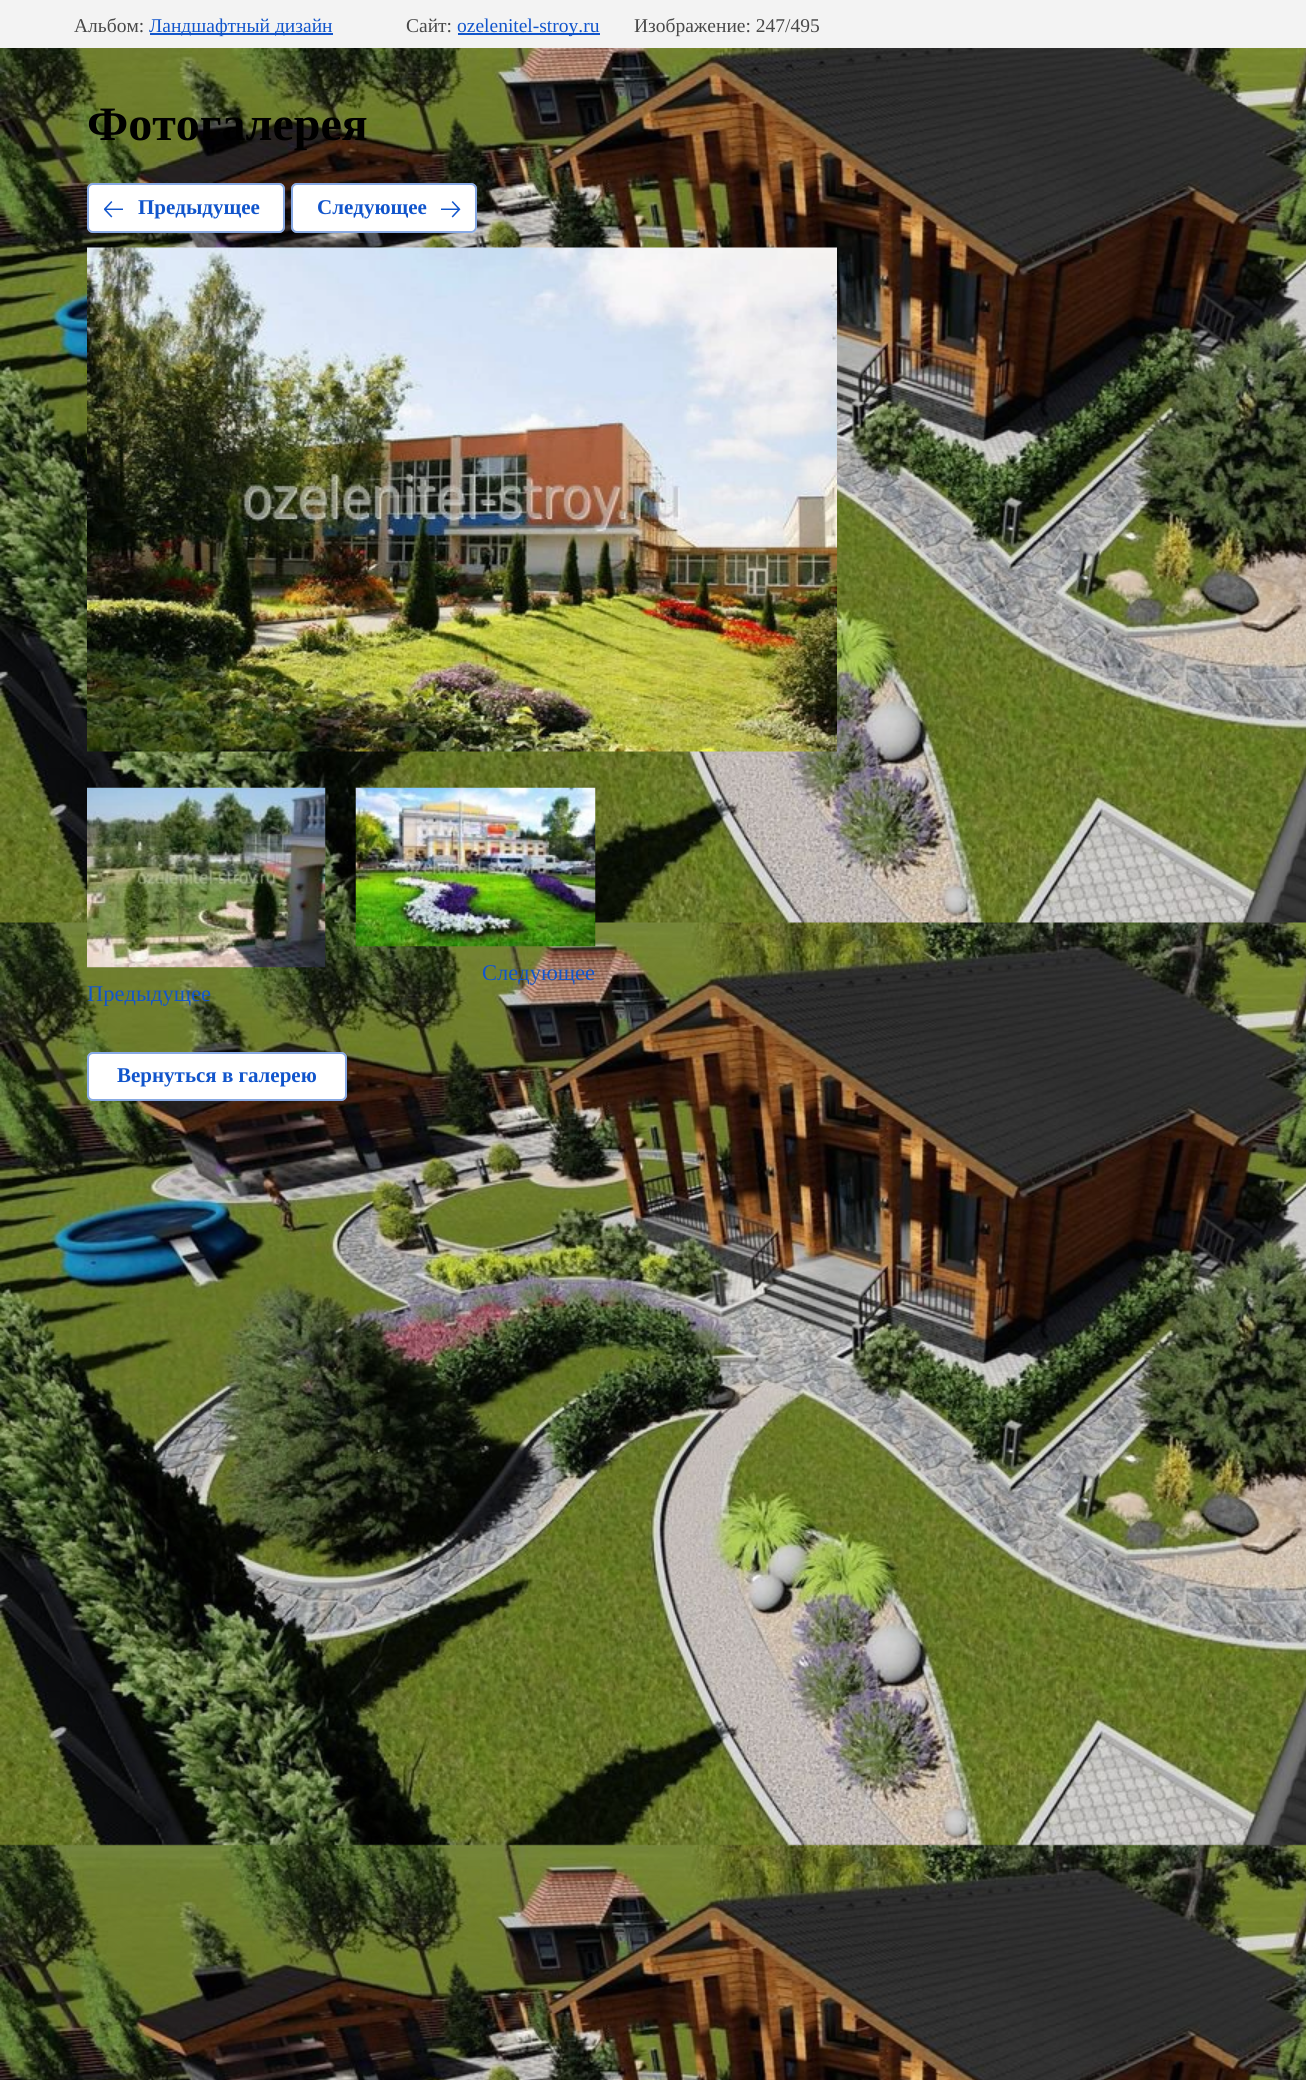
import math
import cairo


def use_color(cr, r, g, b):
  cr.set_source_rgb(r / 255, g / 255, b / 255)

def text(cr, x, y, s, family, size, color, bold=False, italic=False):
  cr.select_font_face(family, cairo.FONT_SLANT_ITALIC if italic else cairo.FONT_SLANT_NORMAL, cairo.FONT_WEIGHT_BOLD if bold else cairo.FONT_WEIGHT_NORMAL)
  cr.set_font_size(size)
  use_color(cr, *color)
  cr.move_to(x, y)
  cr.show_text(s)

def box(cr, x, y, w, h, *color):
  use_color(cr, *color)
  cr.rectangle(x, y, w, h)
  cr.fill()

def round_rect(cr, x, y, w, h, r):
  cr.new_sub_path()
  for i, (u, v) in enumerate([(x + w - r, y + h - r), (x + r, y + h - r), (x + r, y + r), (x + w - r, y + r)]):
    cr.arc(u, v, r, i * math.pi / 2, (i + 1) * math.pi / 2)
  cr.close_path()

def picture(cr, path, x, y, w, h):
  cr.save()
  cr.set_source_surface(cairo.ImageSurface.create_from_png(path), x, y)
  cr.rectangle(x, y, w, h)
  cr.fill()
  cr.restore()

def draw(cr):
  use_color(cr, 255, 255, 255)
  cr.paint()
  picture(cr, "img_01.png", 0, 48, 1306, 2032)
  box(cr, 0, 0, 1306, 48, 243, 243, 243)
  box(cr, 150, 33, 183, 2, 17, 85, 204)
  box(cr, 458, 33, 142, 2, 17, 85, 204)
  use_color(cr, 255, 255, 255)
  round_rect(cr, 87, 183, 198, 50, 6)
  cr.fill()
  round_rect(cr, 88, 184, 196, 48, 5)
  cr.set_source_rgba(0.067, 0.333, 0.8, 0.5)
  cr.stroke()
  picture(cr, "img_02.png", 104, 201, 19, 17)
  use_color(cr, 255, 255, 255)
  round_rect(cr, 291, 183, 186, 50, 6)
  cr.fill()
  round_rect(cr, 292, 184, 184, 48, 5)
  cr.set_source_rgba(0.067, 0.333, 0.8, 0.5)
  cr.stroke()
  picture(cr, "img_03.png", 441, 201, 20, 17)
  picture(cr, "img_04.png", 87, 247, 750, 505)
  picture(cr, "img_05.png", 355, 787, 241, 160)
  picture(cr, "img_06.png", 87, 787, 239, 181)
  use_color(cr, 255, 255, 255)
  round_rect(cr, 87, 1052, 260, 49, 6)
  cr.fill()
  round_rect(cr, 88, 1053, 258, 47, 5)
  cr.set_source_rgba(0.067, 0.333, 0.8, 0.5)
  cr.stroke()
  text(cr, 74, 32, "Альбом:", "Liberation Serif", 19.5, (72, 72, 72))
  text(cr, 149, 32, "Ландшафтный дизайн", "Liberation Serif", 19.5, (17, 85, 204))
  text(cr, 406, 32, "Сайт:", "Liberation Serif", 19.5, (72, 72, 72))
  text(cr, 457, 32, "ozelenitel-stroy.ru", "Liberation Serif", 19.5, (17, 85, 204))
  text(cr, 634, 32, "Изображение: 247/495", "Liberation Serif", 19.5, (72, 72, 72))
  text(cr, 87, 140, "Фотогалерея", "Liberation Serif", 48, (0, 0, 0), bold=True)
  text(cr, 138, 214, "Предыдущее", "Liberation Serif", 21, (17, 85, 204), bold=True)
  text(cr, 317, 214, "Следующее", "Liberation Serif", 21, (17, 85, 204), bold=True)
  text(cr, 482, 980, "Следующее", "Liberation Serif", 22.5, (17, 85, 204))
  text(cr, 87, 1001, "Предыдущее", "Liberation Serif", 22.5, (17, 85, 204))
  text(cr, 117, 1082, "Вернуться в галерею", "Liberation Serif", 21, (17, 85, 204), bold=True)


surface = cairo.ImageSurface(cairo.FORMAT_RGB24, 1306, 2080)
cr = cairo.Context(surface)
options = cairo.FontOptions()
options.set_hint_metrics(cairo.HINT_METRICS_OFF)
options.set_hint_style(cairo.HINT_STYLE_NONE)
cr.set_font_options(options)
cr.set_miter_limit(4)
draw(cr)
surface.write_to_png("out.png")
